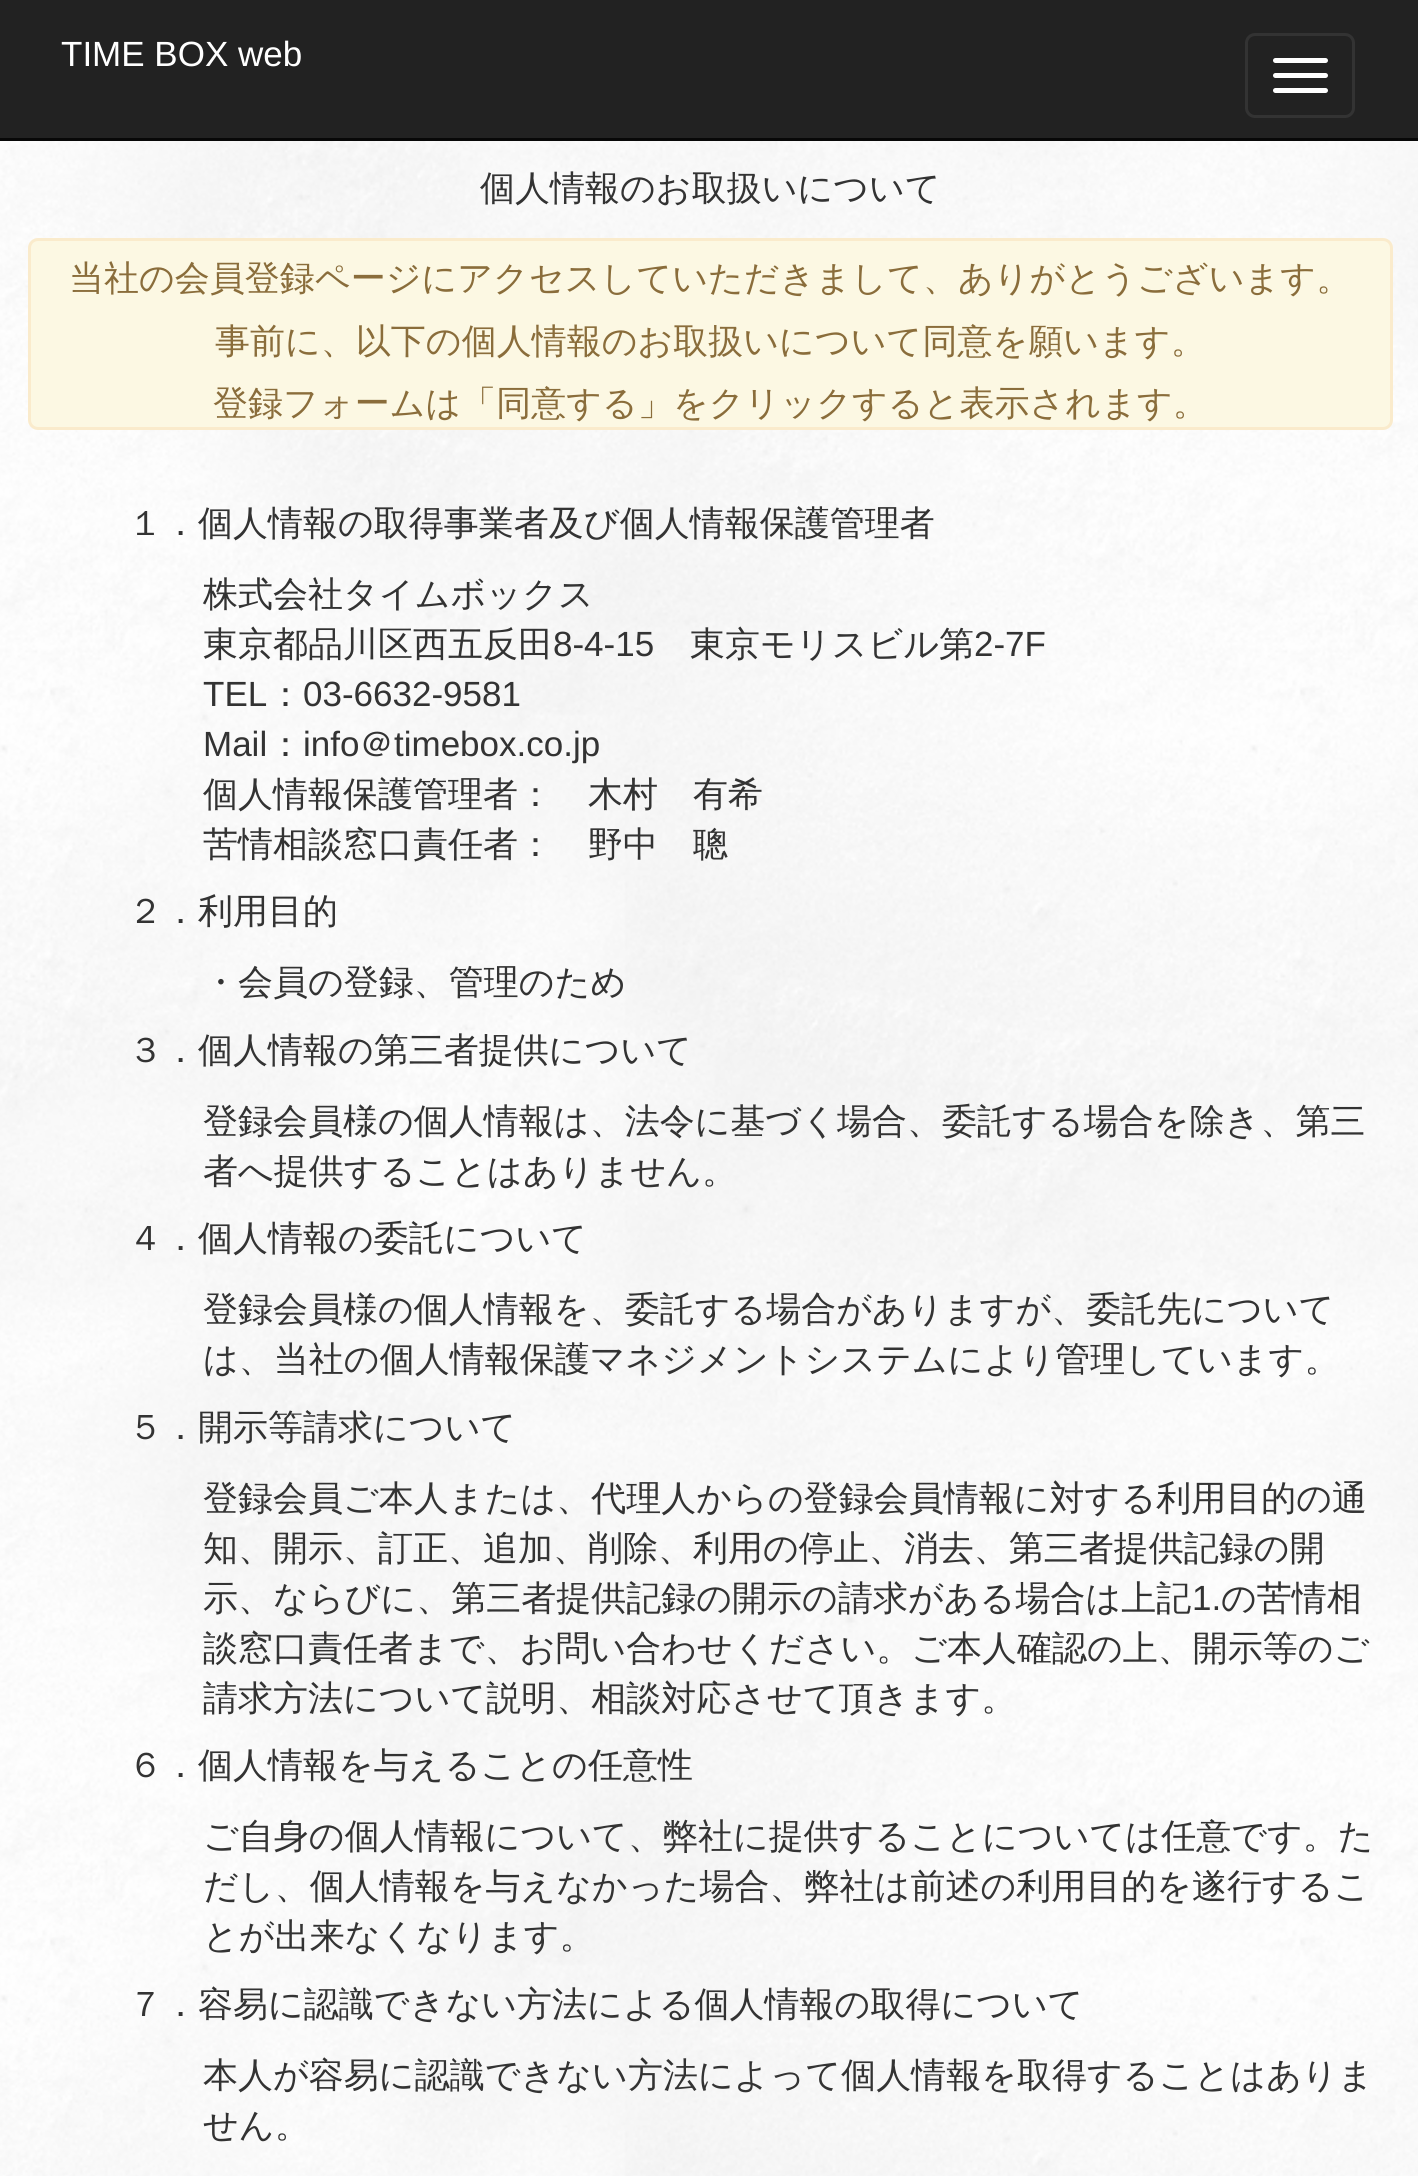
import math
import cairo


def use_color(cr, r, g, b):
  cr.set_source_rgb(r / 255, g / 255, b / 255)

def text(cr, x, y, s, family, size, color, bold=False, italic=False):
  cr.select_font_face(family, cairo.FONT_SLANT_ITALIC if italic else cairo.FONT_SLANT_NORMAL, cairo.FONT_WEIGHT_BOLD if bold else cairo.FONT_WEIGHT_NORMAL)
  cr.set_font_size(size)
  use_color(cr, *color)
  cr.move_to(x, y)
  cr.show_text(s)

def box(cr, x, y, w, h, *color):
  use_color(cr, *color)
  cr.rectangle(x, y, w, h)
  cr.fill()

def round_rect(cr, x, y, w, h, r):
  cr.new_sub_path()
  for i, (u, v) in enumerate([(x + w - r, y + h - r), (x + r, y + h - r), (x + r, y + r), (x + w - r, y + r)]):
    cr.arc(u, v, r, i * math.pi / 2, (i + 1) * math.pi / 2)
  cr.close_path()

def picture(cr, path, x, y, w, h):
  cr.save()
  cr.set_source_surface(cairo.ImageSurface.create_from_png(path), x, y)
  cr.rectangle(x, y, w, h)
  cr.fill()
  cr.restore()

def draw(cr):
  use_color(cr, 255, 255, 255)
  cr.paint()
  picture(cr, "img_01.png", 0, 141, 1418, 2035)
  box(cr, 0, 0, 1418, 138, 34, 34, 34)
  box(cr, 0, 138, 1418, 3, 8, 8, 8)
  round_rect(cr, 1246.5, 34.5, 107, 82, 8.5)
  use_color(cr, 51, 51, 51)
  cr.set_line_width(3)
  cr.stroke()
  use_color(cr, 255, 255, 255)
  round_rect(cr, 1273, 58, 55, 5, 2.5)
  cr.fill()
  round_rect(cr, 1273, 73, 55, 5, 2.5)
  cr.fill()
  round_rect(cr, 1273, 88, 55, 5, 2.5)
  cr.fill()
  use_color(cr, 252, 248, 227)
  round_rect(cr, 29.5, 239.5, 1362, 189, 8.5)
  cr.fill_preserve()
  use_color(cr, 250, 235, 204)
  cr.stroke()
  text(cr, 61, 66, "TIME BOX web", "Liberation Sans", 35, (255, 255, 255))
  text(cr, 480, 200, "個人情報のお取扱いについて", "WenQuanYi Zen Hei Medium", 35, (51, 51, 51))
  text(cr, 69, 290, "当社の会員登録ページにアクセスしていただきまして、ありがとうございます。", "WenQuanYi Zen Hei Medium", 35, (138, 109, 59))
  text(cr, 215, 353, "事前に、以下の個人情報のお取扱いについて同意を願います。", "WenQuanYi Zen Hei Medium", 35, (138, 109, 59))
  text(cr, 213, 415, "登録フォームは「同意する」をクリックすると表示されます。", "WenQuanYi Zen Hei Medium", 35, (138, 109, 59))
  text(cr, 128, 535, "１．個人情報の取得事業者及び個人情報保護管理者", "WenQuanYi Zen Hei Medium", 35, (51, 51, 51))
  text(cr, 203, 606, "株式会社タイムボックス", "WenQuanYi Zen Hei Medium", 35, (51, 51, 51))
  text(cr, 203, 656, "東京都品川区西五反田", "WenQuanYi Zen Hei Medium", 35, (51, 51, 51))
  text(cr, 553, 656, "8-4-15", "Liberation Sans", 35, (51, 51, 51))
  text(cr, 690, 656, "東京モリスビル第", "WenQuanYi Zen Hei Medium", 35, (51, 51, 51))
  text(cr, 974, 656, "2-7F", "Liberation Sans", 35, (51, 51, 51))
  text(cr, 203, 706, "TEL", "Liberation Sans", 35, (51, 51, 51))
  text(cr, 268, 706, "：", "WenQuanYi Zen Hei Medium", 35, (51, 51, 51))
  text(cr, 303, 706, "03-6632-9581", "Liberation Sans", 35, (51, 51, 51))
  text(cr, 203, 756, "Mail", "Liberation Sans", 35, (51, 51, 51))
  text(cr, 268, 756, "：", "WenQuanYi Zen Hei Medium", 35, (51, 51, 51))
  text(cr, 303, 756, "info", "Liberation Sans", 35, (51, 51, 51))
  text(cr, 359, 756, "＠", "WenQuanYi Zen Hei Medium", 35, (51, 51, 51))
  text(cr, 394, 756, "timebox.co.jp", "Liberation Sans", 35, (51, 51, 51))
  text(cr, 203, 806, "個人情報保護管理者：　木村　有希", "WenQuanYi Zen Hei Medium", 35, (51, 51, 51))
  text(cr, 203, 856, "苦情相談窓口責任者：　野中　聰", "WenQuanYi Zen Hei Medium", 35, (51, 51, 51))
  text(cr, 128, 923, "２．利用目的", "WenQuanYi Zen Hei Medium", 35, (51, 51, 51))
  text(cr, 203, 994, "・会員の登録、管理のため", "WenQuanYi Zen Hei Medium", 35, (51, 51, 51))
  text(cr, 128, 1062, "３．個人情報の第三者提供について", "WenQuanYi Zen Hei Medium", 35, (51, 51, 51))
  text(cr, 203, 1133, "登録会員様の個人情報は、法令に基づく場合、委託する場合を除き、第三", "WenQuanYi Zen Hei Medium", 35, (51, 51, 51))
  text(cr, 203, 1183, "者へ提供することはありません。", "WenQuanYi Zen Hei Medium", 35, (51, 51, 51))
  text(cr, 128, 1250, "４．個人情報の委託について", "WenQuanYi Zen Hei Medium", 35, (51, 51, 51))
  text(cr, 203, 1321, "登録会員様の個人情報を、委託する場合がありますが、委託先について", "WenQuanYi Zen Hei Medium", 35, (51, 51, 51))
  text(cr, 203, 1371, "は、当社の個人情報保護マネジメントシステムにより管理しています。", "WenQuanYi Zen Hei Medium", 35, (51, 51, 51))
  text(cr, 128, 1439, "５．開示等請求について", "WenQuanYi Zen Hei Medium", 35, (51, 51, 51))
  text(cr, 203, 1510, "登録会員ご本人または、代理人からの登録会員情報に対する利用目的の通", "WenQuanYi Zen Hei Medium", 35, (51, 51, 51))
  text(cr, 203, 1560, "知、開示、訂正、追加、削除、利用の停止、消去、第三者提供記録の開", "WenQuanYi Zen Hei Medium", 35, (51, 51, 51))
  text(cr, 203, 1610, "示、ならびに、第三者提供記録の開示の請求がある場合は上記", "WenQuanYi Zen Hei Medium", 35, (51, 51, 51))
  text(cr, 1192, 1610, "1.", "Liberation Sans", 35, (51, 51, 51))
  text(cr, 1221, 1610, "の苦情相", "WenQuanYi Zen Hei Medium", 35, (51, 51, 51))
  text(cr, 203, 1660, "談窓口責任者まで、お問い合わせください。ご本人確認の上、開示等のご", "WenQuanYi Zen Hei Medium", 35, (51, 51, 51))
  text(cr, 203, 1710, "請求方法について説明、相談対応させて頂きます。", "WenQuanYi Zen Hei Medium", 35, (51, 51, 51))
  text(cr, 128, 1777, "６．個人情報を与えることの任意性", "WenQuanYi Zen Hei Medium", 35, (51, 51, 51))
  text(cr, 203, 1848, "ご自身の個人情報について、弊社に提供することについては任意です。た", "WenQuanYi Zen Hei Medium", 35, (51, 51, 51))
  text(cr, 203, 1898, "だし、個人情報を与えなかった場合、弊社は前述の利用目的を遂行するこ", "WenQuanYi Zen Hei Medium", 35, (51, 51, 51))
  text(cr, 203, 1948, "とが出来なくなります。", "WenQuanYi Zen Hei Medium", 35, (51, 51, 51))
  text(cr, 128, 2016, "７．容易に認識できない方法による個人情報の取得について", "WenQuanYi Zen Hei Medium", 35, (51, 51, 51))
  text(cr, 203, 2087, "本人が容易に認識できない方法によって個人情報を取得することはありま", "WenQuanYi Zen Hei Medium", 35, (51, 51, 51))
  text(cr, 203, 2137, "せん。", "WenQuanYi Zen Hei Medium", 35, (51, 51, 51))


surface = cairo.ImageSurface(cairo.FORMAT_RGB24, 1418, 2176)
cr = cairo.Context(surface)
options = cairo.FontOptions()
options.set_hint_metrics(cairo.HINT_METRICS_OFF)
options.set_hint_style(cairo.HINT_STYLE_NONE)
cr.set_font_options(options)
cr.set_miter_limit(4)
draw(cr)
surface.write_to_png("out.png")
